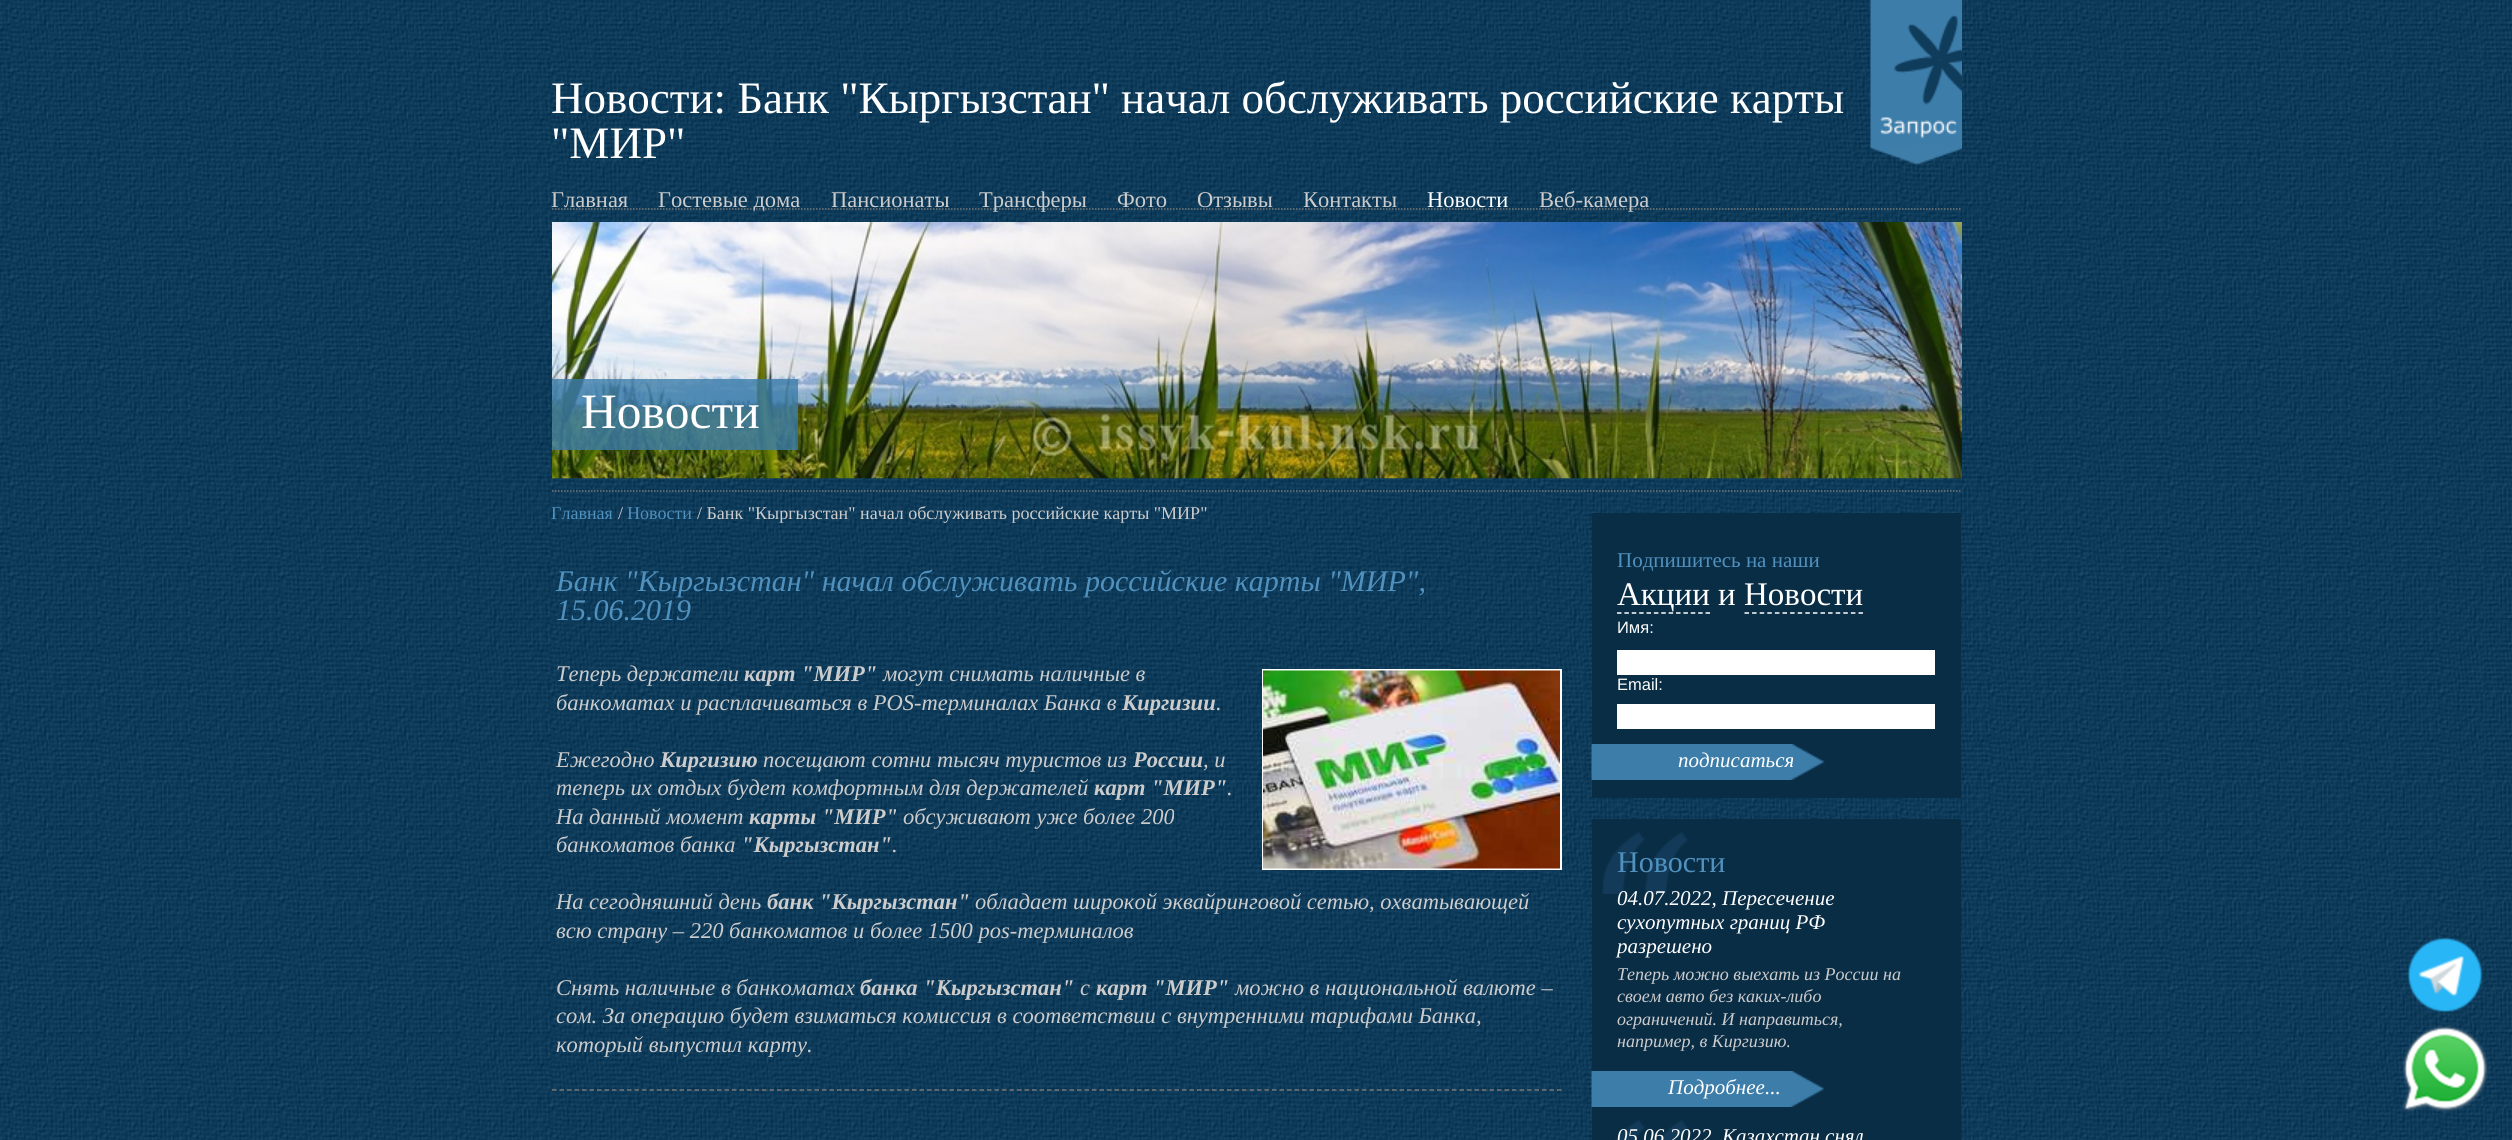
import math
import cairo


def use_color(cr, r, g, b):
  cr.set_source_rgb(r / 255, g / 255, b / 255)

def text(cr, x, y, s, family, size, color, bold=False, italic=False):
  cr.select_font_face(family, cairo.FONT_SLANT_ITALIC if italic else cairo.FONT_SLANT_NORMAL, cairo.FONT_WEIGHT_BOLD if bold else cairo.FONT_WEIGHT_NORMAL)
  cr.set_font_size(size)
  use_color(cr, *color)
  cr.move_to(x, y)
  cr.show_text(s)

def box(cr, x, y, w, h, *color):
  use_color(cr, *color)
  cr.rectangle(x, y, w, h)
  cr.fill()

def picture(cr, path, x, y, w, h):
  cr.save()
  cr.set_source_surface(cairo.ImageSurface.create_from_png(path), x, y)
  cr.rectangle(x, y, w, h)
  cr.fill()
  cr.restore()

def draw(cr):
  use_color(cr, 255, 255, 255)
  cr.paint()
  picture(cr, "img_01.png", 0, 0, 2512, 1140)
  cr.new_path()
  cr.move_to(552, 209)
  cr.line_to(1962, 209)
  use_color(cr, 119, 119, 118)
  cr.set_line_width(1.5)
  cr.set_dash([1.5, 1.5])
  cr.stroke()
  picture(cr, "img_02.png", 1870, 0, 92, 166)
  picture(cr, "img_03.png", 552, 222, 1410, 257)
  cr.set_source_rgba(0.239, 0.49, 0.667, 0.8)
  cr.rectangle(552, 379, 246, 71)
  cr.fill()
  cr.new_path()
  cr.move_to(552, 491)
  cr.line_to(1962, 491)
  use_color(cr, 119, 119, 118)
  cr.stroke()
  cr.new_path()
  cr.move_to(552, 1090)
  cr.line_to(1561.5, 1090)
  cr.set_dash([4.5, 3])
  cr.stroke()
  cr.rectangle(1263, 670, 298, 199)
  use_color(cr, 255, 255, 255)
  cr.set_line_width(2)
  cr.set_dash([])
  cr.stroke()
  picture(cr, "img_04.png", 1263, 670, 297, 199)
  box(cr, 1592, 513, 369, 285, 10, 45, 70)
  cr.new_path()
  cr.move_to(1617, 613)
  cr.line_to(1710, 613)
  use_color(cr, 255, 255, 255)
  cr.set_line_width(1.5)
  cr.set_dash([4.5, 2.88])
  cr.stroke()
  cr.new_path()
  cr.move_to(1744.5, 613)
  cr.line_to(1863, 613)
  cr.set_dash([4.5, 3.1])
  cr.stroke()
  box(cr, 1617, 650, 318, 25, 255, 255, 255)
  box(cr, 1617, 704, 318, 25, 255, 255, 255)
  picture(cr, "img_05.png", 1591, 744, 234, 36)
  box(cr, 1592, 819, 369, 321, 10, 45, 70)
  picture(cr, "img_06.png", 1602, 832, 86, 62)
  picture(cr, "img_07.png", 1591, 1071, 234, 36)
  picture(cr, "img_08.png", 1615, 1120, 73, 20)
  picture(cr, "img_09.png", 2407, 937, 76, 76)
  picture(cr, "img_10.png", 2402, 1025, 87, 87)
  text(cr, 551, 113, "Новости: Банк \"Кыргызстан\" начал обслуживать российские карты", "Liberation Serif", 45, (255, 255, 255))
  text(cr, 551, 158, "\"МИР\"", "Liberation Serif", 45, (255, 255, 255))
  text(cr, 551, 207, "Главная", "Liberation Serif", 22.5, (204, 204, 204))
  text(cr, 658, 207, "Гостевые дома", "Liberation Serif", 22.5, (204, 204, 204))
  text(cr, 831, 207, "Пансионаты", "Liberation Serif", 22.5, (204, 204, 204))
  text(cr, 979, 207, "Трансферы", "Liberation Serif", 22.5, (204, 204, 204))
  text(cr, 1117, 207, "Фото", "Liberation Serif", 22.5, (204, 204, 204))
  text(cr, 1197, 207, "Отзывы", "Liberation Serif", 22.5, (204, 204, 204))
  text(cr, 1303, 207, "Контакты", "Liberation Serif", 22.5, (204, 204, 204))
  text(cr, 1427, 207, "Новости", "Liberation Serif", 22.5, (255, 255, 255))
  text(cr, 1539, 207, "Веб-камера", "Liberation Serif", 22.5, (204, 204, 204))
  text(cr, 581, 428, "Новости", "Liberation Serif", 49.5, (255, 255, 255))
  text(cr, 551, 519, "Главная", "Liberation Serif", 18, (80, 145, 190))
  text(cr, 618, 519, "/", "Liberation Serif", 18, (204, 204, 204))
  text(cr, 627, 519, "Новости", "Liberation Serif", 18, (80, 145, 190))
  text(cr, 697, 519, "/ Банк \"Кыргызстан\" начал обслуживать российские карты \"МИР\"", "Liberation Serif", 18, (204, 204, 204))
  text(cr, 556, 591, "Банк \"Кыргызстан\" начал обслуживать российские карты \"МИР\",", "Liberation Serif", 30, (80, 145, 190), italic=True)
  text(cr, 556, 620, "15.06.2019", "Liberation Serif", 30, (80, 145, 190), italic=True)
  text(cr, 556, 681, "Теперь держатели", "Liberation Serif", 22.5, (204, 204, 204), italic=True)
  text(cr, 744, 681, "карт \"МИР\"", "Liberation Serif", 22.5, (204, 204, 204), bold=True, italic=True)
  text(cr, 883, 681, "могут снимать наличные в", "Liberation Serif", 22.5, (204, 204, 204), italic=True)
  text(cr, 556, 710, "банкоматах и расплачиваться в POS-терминалах Банка в", "Liberation Serif", 22.5, (204, 204, 204), italic=True)
  text(cr, 1122, 710, "Киргизии", "Liberation Serif", 22.5, (204, 204, 204), bold=True, italic=True)
  text(cr, 1216, 710, ".", "Liberation Serif", 22.5, (204, 204, 204), italic=True)
  text(cr, 556, 767, "Ежегодно", "Liberation Serif", 22.5, (204, 204, 204), italic=True)
  text(cr, 660, 767, "Киргизию", "Liberation Serif", 22.5, (204, 204, 204), bold=True, italic=True)
  text(cr, 763, 767, "посещают сотни тысяч туристов из", "Liberation Serif", 22.5, (204, 204, 204), italic=True)
  text(cr, 1133, 767, "России", "Liberation Serif", 22.5, (204, 204, 204), bold=True, italic=True)
  text(cr, 1203, 767, ", и", "Liberation Serif", 22.5, (204, 204, 204), italic=True)
  text(cr, 556, 795, "теперь их отдых будет комфортным для держателей", "Liberation Serif", 22.5, (204, 204, 204), italic=True)
  text(cr, 1094, 795, "карт \"МИР\"", "Liberation Serif", 22.5, (204, 204, 204), bold=True, italic=True)
  text(cr, 1227, 795, ".", "Liberation Serif", 22.5, (204, 204, 204), italic=True)
  text(cr, 556, 824, "На данный момент", "Liberation Serif", 22.5, (204, 204, 204), italic=True)
  text(cr, 749, 824, "карты \"МИР\"", "Liberation Serif", 22.5, (204, 204, 204), bold=True, italic=True)
  text(cr, 903, 824, "обсуживают уже более 200", "Liberation Serif", 22.5, (204, 204, 204), italic=True)
  text(cr, 556, 852, "банкоматов банка", "Liberation Serif", 22.5, (204, 204, 204), italic=True)
  text(cr, 741, 852, "\"Кыргызстан\"", "Liberation Serif", 22.5, (204, 204, 204), bold=True, italic=True)
  text(cr, 892, 852, ".", "Liberation Serif", 22.5, (204, 204, 204), italic=True)
  text(cr, 556, 909, "На сегодняшний день", "Liberation Serif", 22.5, (204, 204, 204), italic=True)
  text(cr, 767, 909, "банк \"Кыргызстан\"", "Liberation Serif", 22.5, (204, 204, 204), bold=True, italic=True)
  text(cr, 975, 909, "обладает широкой эквайринговой сетью, охватывающей", "Liberation Serif", 22.5, (204, 204, 204), italic=True)
  text(cr, 556, 938, "всю страну – 220 банкоматов и более 1500 pos-терминалов", "Liberation Serif", 22.5, (204, 204, 204), italic=True)
  text(cr, 556, 995, "Снять наличные в банкоматах", "Liberation Serif", 22.5, (204, 204, 204), italic=True)
  text(cr, 860, 995, "банка \"Кыргызстан\"", "Liberation Serif", 22.5, (204, 204, 204), bold=True, italic=True)
  text(cr, 1080, 995, "с", "Liberation Serif", 22.5, (204, 204, 204), italic=True)
  text(cr, 1096, 995, "карт \"МИР\"", "Liberation Serif", 22.5, (204, 204, 204), bold=True, italic=True)
  text(cr, 1235, 995, "можно в национальной валюте –", "Liberation Serif", 22.5, (204, 204, 204), italic=True)
  text(cr, 556, 1023, "сом. За операцию будет взиматься комиссия в соответствии с внутренними тарифами Банка,", "Liberation Serif", 22.5, (204, 204, 204), italic=True)
  text(cr, 556, 1052, "который выпустил карту.", "Liberation Serif", 22.5, (204, 204, 204), italic=True)
  text(cr, 1617, 567, "Подпишитесь на наши", "Liberation Serif", 21, (80, 145, 190))
  text(cr, 1617, 605, "Акции и Новости", "Liberation Serif", 33, (255, 255, 255))
  text(cr, 1617, 633, "Имя:", "Liberation Sans", 16.5, (255, 255, 255))
  text(cr, 1617, 690, "Email:", "Liberation Sans", 16.5, (255, 255, 255))
  text(cr, 1678, 767, "подписаться", "Liberation Serif", 21, (255, 255, 255), italic=True)
  text(cr, 1617, 872, "Новости", "Liberation Serif", 30, (80, 145, 190))
  text(cr, 1617, 905, "04.07.2022, Пересечение", "Liberation Serif", 21, (255, 255, 255), italic=True)
  text(cr, 1617, 929, "сухопутных границ РФ", "Liberation Serif", 21, (255, 255, 255), italic=True)
  text(cr, 1617, 953, "разрешено", "Liberation Serif", 21, (255, 255, 255), italic=True)
  text(cr, 1617, 980, "Теперь можно выехать из России на", "Liberation Serif", 18, (204, 204, 204), italic=True)
  text(cr, 1617, 1002, "своем авто без каких-либо", "Liberation Serif", 18, (204, 204, 204), italic=True)
  text(cr, 1617, 1025, "ограничений. И направиться,", "Liberation Serif", 18, (204, 204, 204), italic=True)
  text(cr, 1617, 1047, "например, в Киргизию.", "Liberation Serif", 18, (204, 204, 204), italic=True)
  text(cr, 1668, 1094, "Подробнее...", "Liberation Serif", 21, (255, 255, 255), italic=True)
  text(cr, 1617, 1143, "05.06.2022, Казахстан снял", "Liberation Serif", 21, (255, 255, 255), italic=True)


surface = cairo.ImageSurface(cairo.FORMAT_RGB24, 2512, 1140)
cr = cairo.Context(surface)
options = cairo.FontOptions()
options.set_hint_metrics(cairo.HINT_METRICS_OFF)
options.set_hint_style(cairo.HINT_STYLE_NONE)
cr.set_font_options(options)
cr.set_miter_limit(4)
draw(cr)
surface.write_to_png("out.png")
